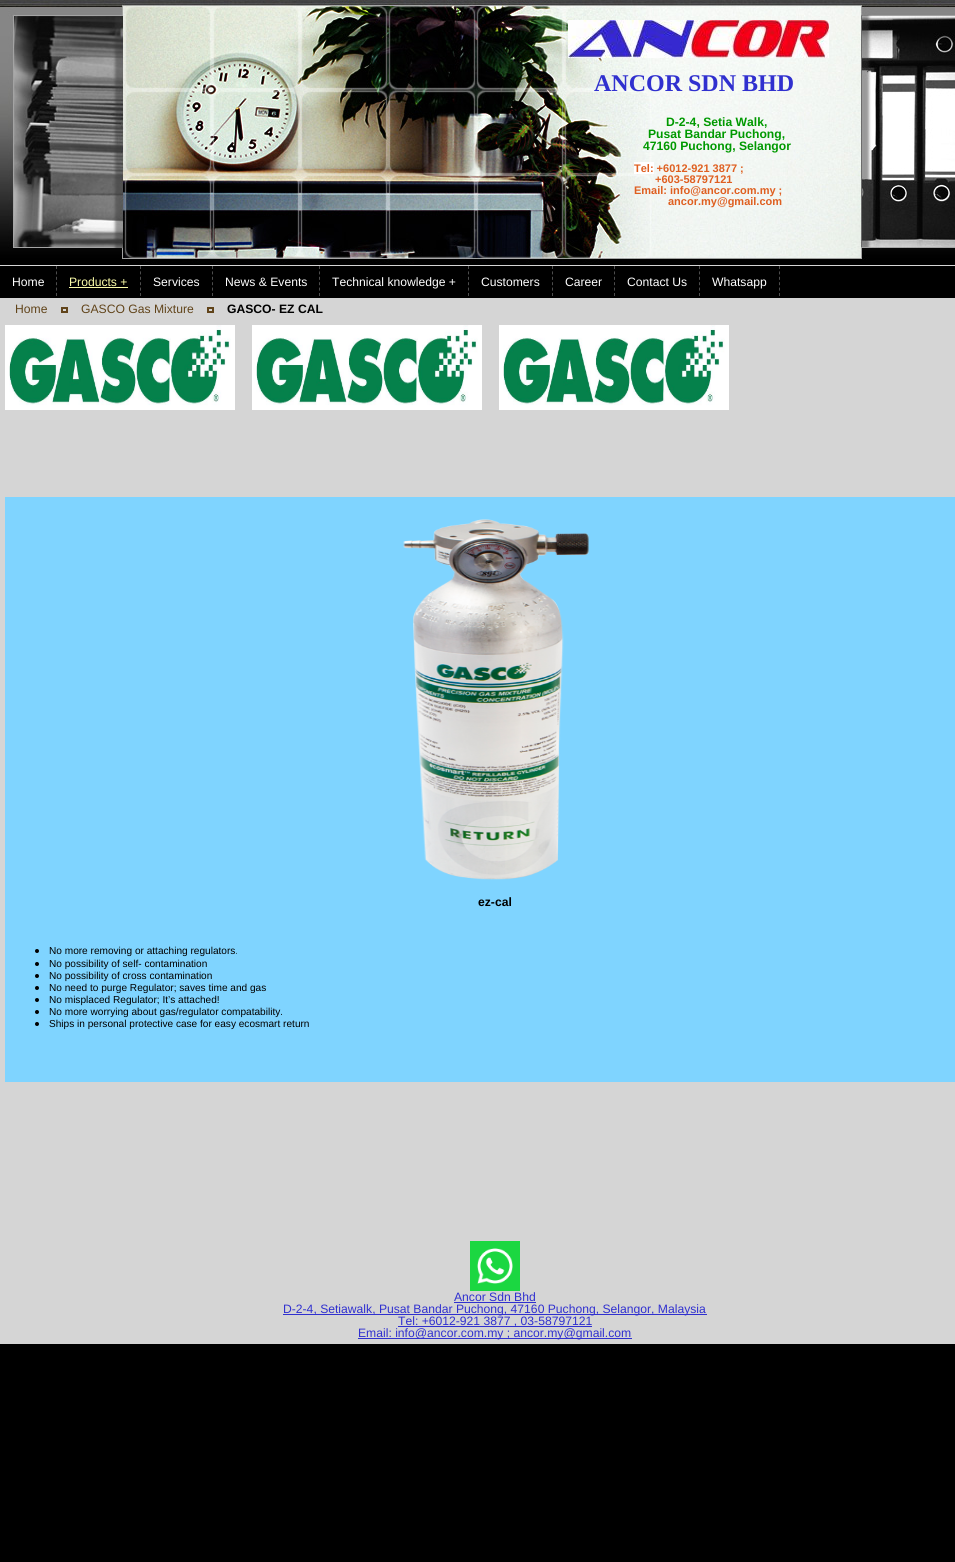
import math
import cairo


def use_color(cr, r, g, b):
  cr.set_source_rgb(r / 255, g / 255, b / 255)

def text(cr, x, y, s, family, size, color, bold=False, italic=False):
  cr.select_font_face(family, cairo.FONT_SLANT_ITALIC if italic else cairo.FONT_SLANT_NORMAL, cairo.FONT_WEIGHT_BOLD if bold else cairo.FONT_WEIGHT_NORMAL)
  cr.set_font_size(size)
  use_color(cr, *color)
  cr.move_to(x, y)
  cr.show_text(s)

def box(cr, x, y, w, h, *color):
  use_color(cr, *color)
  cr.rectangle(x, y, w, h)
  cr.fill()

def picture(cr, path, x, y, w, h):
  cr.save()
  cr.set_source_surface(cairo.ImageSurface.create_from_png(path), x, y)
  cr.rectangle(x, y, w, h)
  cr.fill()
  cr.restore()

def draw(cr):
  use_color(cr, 0, 0, 0)
  cr.paint()
  picture(cr, "img_01.png", 0, 259, 955, 7)
  picture(cr, "img_02.png", 0, 0, 326, 264)
  picture(cr, "img_03.png", 326, 0, 326, 264)
  picture(cr, "img_04.png", 652, 0, 209, 259)
  picture(cr, "img_05.png", 861, 0, 94, 260)
  picture(cr, "img_06.png", 568, 20, 261, 38)
  box(cr, 634, 162, 20, 12, 255, 255, 255)
  cr.new_path()
  cr.move_to(56.5, 266)
  cr.line_to(56.5, 296)
  use_color(cr, 77, 77, 77)
  cr.set_line_width(1)
  cr.set_dash([3, 2.4])
  cr.stroke()
  cr.new_path()
  cr.move_to(140.5, 266)
  cr.line_to(140.5, 296)
  cr.stroke()
  box(cr, 69, 287, 59, 1, 252, 253, 169)
  cr.new_path()
  cr.move_to(212.5, 266)
  cr.line_to(212.5, 296)
  use_color(cr, 77, 77, 77)
  cr.stroke()
  cr.new_path()
  cr.move_to(319.5, 266)
  cr.line_to(319.5, 296)
  cr.stroke()
  cr.new_path()
  cr.move_to(468.5, 266)
  cr.line_to(468.5, 296)
  cr.stroke()
  cr.new_path()
  cr.move_to(552.5, 266)
  cr.line_to(552.5, 296)
  cr.stroke()
  cr.new_path()
  cr.move_to(614.5, 266)
  cr.line_to(614.5, 296)
  cr.stroke()
  cr.new_path()
  cr.move_to(699.5, 266)
  cr.line_to(699.5, 296)
  cr.stroke()
  cr.new_path()
  cr.move_to(779.5, 266)
  cr.line_to(779.5, 296)
  cr.stroke()
  box(cr, 0, 298, 955, 1046, 213, 213, 213)
  cr.rectangle(62, 308, 5, 4)
  use_color(cr, 97, 68, 26)
  cr.set_line_width(2)
  cr.set_dash([])
  cr.stroke()
  cr.rectangle(208, 308, 5, 4)
  cr.stroke()
  picture(cr, "img_07.png", 5, 325, 230, 85)
  picture(cr, "img_07.png", 252, 325, 230, 85)
  picture(cr, "img_07.png", 499, 325, 230, 85)
  box(cr, 5, 497, 950, 585, 127, 212, 255)
  picture(cr, "img_08.png", 403, 519, 186, 361)
  use_color(cr, 0, 0, 0)
  cr.arc(37, 951, 2, 0, 2 * math.pi)
  cr.fill()
  cr.arc(37, 964, 2, 0, 2 * math.pi)
  cr.fill()
  cr.arc(37, 976, 2, 0, 2 * math.pi)
  cr.fill()
  cr.arc(37, 988, 2, 0, 2 * math.pi)
  cr.fill()
  cr.arc(37, 1000, 2, 0, 2 * math.pi)
  cr.fill()
  cr.arc(37, 1012, 2, 0, 2 * math.pi)
  cr.fill()
  cr.arc(37, 1024, 2, 0, 2 * math.pi)
  cr.fill()
  picture(cr, "img_09.png", 470, 1241, 50, 50)
  box(cr, 454, 1302, 82, 1, 48, 48, 207)
  box(cr, 283, 1314, 424, 1, 48, 48, 207)
  box(cr, 398, 1326, 194, 1, 48, 48, 207)
  box(cr, 358, 1338, 274, 1, 48, 48, 207)
  text(cr, 594, 91, "ANCOR SDN BHD", "Liberation Serif", 24, (48, 48, 207), bold=True)
  text(cr, 666, 126, "D-2-4, Setia Walk,", "Liberation Sans", 12.15, (0, 153, 0), bold=True)
  text(cr, 648, 138, "Pusat Bandar Puchong,", "Liberation Sans", 12.15, (0, 153, 0), bold=True)
  text(cr, 643, 150, "47160 Puchong, Selangor", "Liberation Sans", 12.15, (0, 153, 0), bold=True)
  text(cr, 634, 172, "Tel: +6012-921 3877 ;", "Liberation Sans", 11, (223, 95, 32), bold=True)
  text(cr, 655, 183, "+603-58797121", "Liberation Sans", 11, (223, 95, 32), bold=True)
  text(cr, 634, 194, "Email: info@ancor.com.my ;", "Liberation Sans", 11, (223, 95, 32), bold=True)
  text(cr, 668, 205, "ancor.my@gmail.com", "Liberation Sans", 11, (223, 95, 32), bold=True)
  text(cr, 12, 286, "Home", "Liberation Sans", 12.15, (255, 255, 255))
  text(cr, 69, 286, "Products +", "Liberation Sans", 12.15, (252, 253, 169))
  text(cr, 153, 286, "Services", "Liberation Sans", 12.15, (255, 255, 255))
  text(cr, 225, 286, "News & Events", "Liberation Sans", 12.15, (255, 255, 255))
  text(cr, 332, 286, "Technical knowledge +", "Liberation Sans", 12.15, (255, 255, 255))
  text(cr, 481, 286, "Customers", "Liberation Sans", 12.15, (255, 255, 255))
  text(cr, 565, 286, "Career", "Liberation Sans", 12.15, (255, 255, 255))
  text(cr, 627, 286, "Contact Us", "Liberation Sans", 12.15, (255, 255, 255))
  text(cr, 712, 286, "Whatsapp", "Liberation Sans", 12.15, (255, 255, 255))
  text(cr, 15, 313, "Home", "Liberation Sans", 12.15, (97, 68, 26))
  text(cr, 81, 313, "GASCO Gas Mixture", "Liberation Sans", 12.15, (97, 68, 26))
  text(cr, 227, 313, "GASCO- EZ CAL", "Liberation Sans", 12.15, (0, 0, 0), bold=True)
  text(cr, 478, 906, "ez-cal", "Liberation Sans", 12.15, (0, 0, 0), bold=True)
  text(cr, 49, 954, "No more removing or attaching regulators.", "Liberation Sans", 10.1, (0, 0, 0))
  text(cr, 49, 967, "No possibility of self- contamination", "Liberation Sans", 10.1, (0, 0, 0))
  text(cr, 49, 979, "No possibility of cross contamination", "Liberation Sans", 10.1, (0, 0, 0))
  text(cr, 49, 991, "No need to purge Regulator; saves time and gas", "Liberation Sans", 10.1, (0, 0, 0))
  text(cr, 49, 1003, "No misplaced Regulator; It’s attached!", "Liberation Sans", 10.1, (0, 0, 0))
  text(cr, 49, 1015, "No more worrying about gas/regulator compatability.", "Liberation Sans", 10.1, (0, 0, 0))
  text(cr, 49, 1027, "Ships in personal protective case for easy ecosmart return", "Liberation Sans", 10.1, (0, 0, 0))
  text(cr, 454, 1301, "Ancor Sdn Bhd", "Liberation Sans", 12.15, (48, 48, 207))
  text(cr, 283, 1313, "D-2-4, Setiawalk, Pusat Bandar Puchong, 47160 Puchong, Selangor, Malaysia", "Liberation Sans", 12.15, (48, 48, 207))
  text(cr, 398, 1325, "Tel: +6012-921 3877 , 03-58797121", "Liberation Sans", 12.15, (48, 48, 207))
  text(cr, 358, 1337, "Email: info@ancor.com.my ; ancor.my@gmail.com", "Liberation Sans", 12.15, (48, 48, 207))


surface = cairo.ImageSurface(cairo.FORMAT_RGB24, 955, 1562)
cr = cairo.Context(surface)
options = cairo.FontOptions()
options.set_hint_metrics(cairo.HINT_METRICS_OFF)
options.set_hint_style(cairo.HINT_STYLE_NONE)
cr.set_font_options(options)
cr.set_miter_limit(4)
draw(cr)
surface.write_to_png("out.png")
